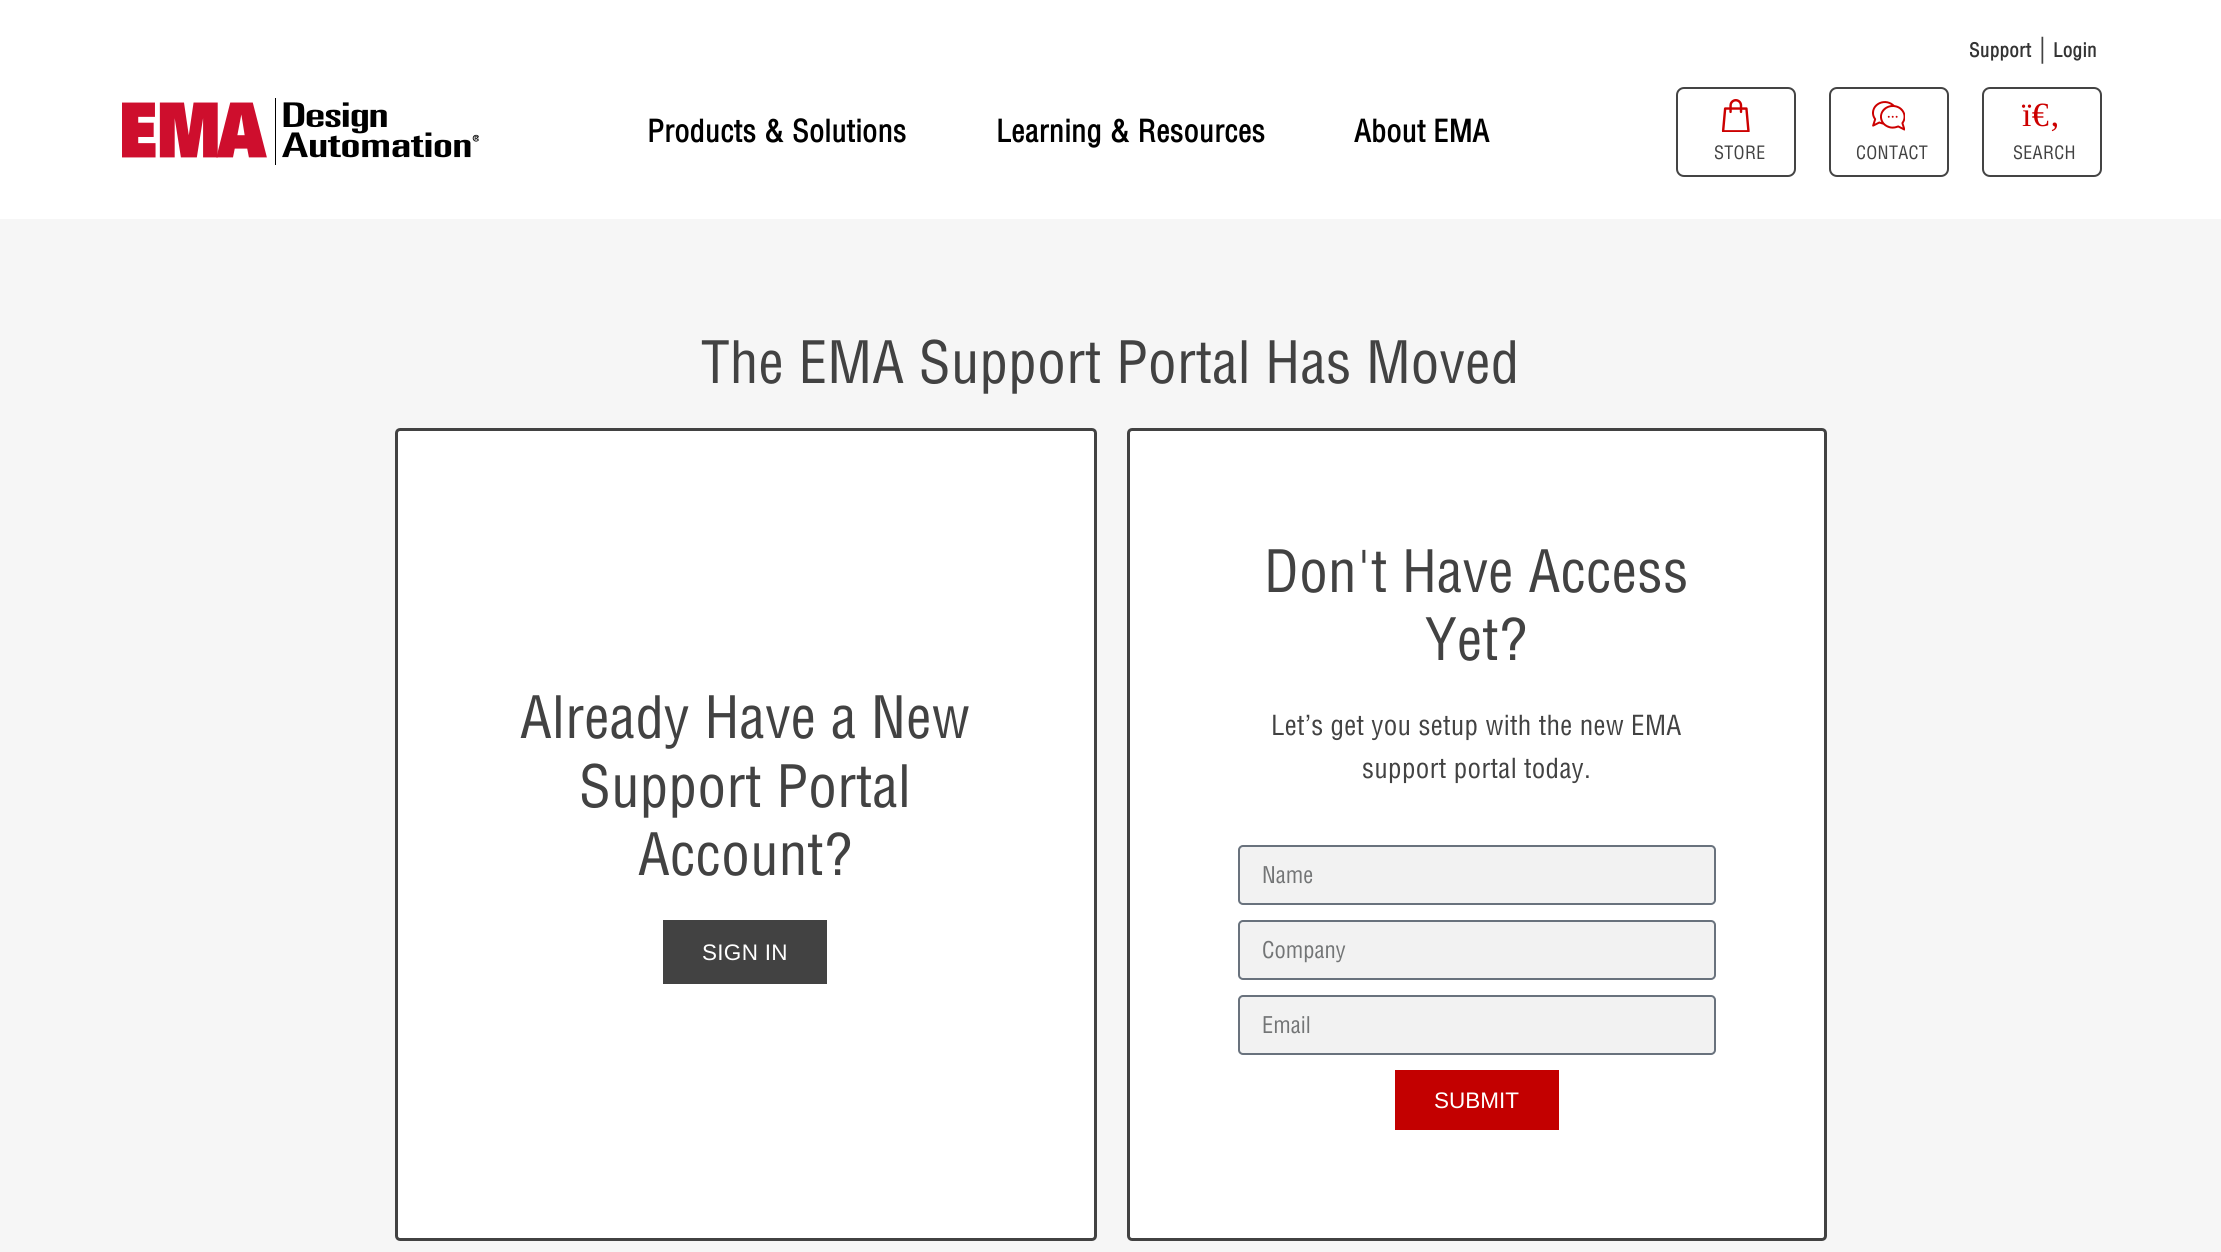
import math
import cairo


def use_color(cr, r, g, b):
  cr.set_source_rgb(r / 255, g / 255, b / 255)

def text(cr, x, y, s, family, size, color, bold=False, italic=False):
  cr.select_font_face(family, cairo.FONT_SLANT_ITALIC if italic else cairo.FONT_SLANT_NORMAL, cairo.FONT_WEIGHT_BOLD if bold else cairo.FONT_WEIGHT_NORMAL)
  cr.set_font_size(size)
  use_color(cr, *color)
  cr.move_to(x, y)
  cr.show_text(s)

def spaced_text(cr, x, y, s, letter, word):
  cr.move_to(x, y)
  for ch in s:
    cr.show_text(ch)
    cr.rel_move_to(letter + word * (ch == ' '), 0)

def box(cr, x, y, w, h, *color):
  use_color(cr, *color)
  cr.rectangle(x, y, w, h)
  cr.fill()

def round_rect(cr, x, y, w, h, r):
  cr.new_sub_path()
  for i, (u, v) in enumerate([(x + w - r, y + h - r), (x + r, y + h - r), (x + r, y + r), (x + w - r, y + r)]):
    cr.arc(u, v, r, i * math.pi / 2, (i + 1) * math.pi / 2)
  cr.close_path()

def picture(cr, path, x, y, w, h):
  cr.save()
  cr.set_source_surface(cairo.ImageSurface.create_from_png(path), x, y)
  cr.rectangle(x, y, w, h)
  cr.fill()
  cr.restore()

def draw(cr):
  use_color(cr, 255, 255, 255)
  cr.paint()
  box(cr, 0, 219, 2221, 1033, 246, 246, 246)
  picture(cr, "img_01.png", 122, 98, 357, 67)
  round_rect(cr, 1677, 88, 118, 88, 7)
  use_color(cr, 68, 68, 68)
  cr.stroke()
  picture(cr, "img_02.png", 1721, 99, 29, 33)
  round_rect(cr, 1830, 88, 118, 88, 7)
  cr.stroke()
  picture(cr, "img_03.png", 1872, 101, 33, 30)
  round_rect(cr, 1983, 88, 118, 88, 7)
  cr.stroke()
  use_color(cr, 255, 255, 255)
  round_rect(cr, 396.5, 429.5, 699, 810, 3.5)
  cr.fill_preserve()
  use_color(cr, 66, 66, 66)
  cr.set_line_width(3)
  cr.stroke()
  box(cr, 663, 920, 164, 64, 66, 66, 66)
  use_color(cr, 255, 255, 255)
  round_rect(cr, 1128.5, 429.5, 697, 810, 3.5)
  cr.fill_preserve()
  use_color(cr, 66, 66, 66)
  cr.stroke()
  use_color(cr, 242, 242, 242)
  round_rect(cr, 1239, 846, 476, 58, 4)
  cr.fill_preserve()
  use_color(cr, 105, 114, 125)
  cr.set_line_width(2)
  cr.stroke()
  use_color(cr, 242, 242, 242)
  round_rect(cr, 1239, 921, 476, 58, 4)
  cr.fill_preserve()
  use_color(cr, 105, 114, 125)
  cr.stroke()
  use_color(cr, 242, 242, 242)
  round_rect(cr, 1239, 996, 476, 58, 4)
  cr.fill_preserve()
  use_color(cr, 105, 114, 125)
  cr.stroke()
  box(cr, 1395, 1070, 164, 60, 195, 0, 0)
  cr.select_font_face("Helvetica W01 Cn", cairo.FONT_SLANT_NORMAL, cairo.FONT_WEIGHT_BOLD)
  cr.set_font_size(19)
  use_color(cr, 51, 51, 51)
  spaced_text(cr, 1969, 57, "Support", 0.3, 0)
  cr.select_font_face("Helvetica W01 Cn")
  cr.set_font_size(27)
  use_color(cr, 66, 66, 66)
  spaced_text(cr, 2039, 57, "|", 0.3, 0)
  cr.select_font_face("Helvetica W01 Cn", cairo.FONT_SLANT_NORMAL, cairo.FONT_WEIGHT_BOLD)
  cr.set_font_size(19)
  use_color(cr, 51, 51, 51)
  spaced_text(cr, 2053, 57, "Login", 0.3, 0)
  cr.set_font_size(30)
  use_color(cr, 0, 0, 0)
  spaced_text(cr, 647, 142, "Products & Solutions", 0.3, 0)
  spaced_text(cr, 996, 142, "Learning & Resources", 0.3, 0)
  spaced_text(cr, 1354, 142, "About EMA", 0.3, 0)
  cr.select_font_face("Helvetica W01 Cn")
  cr.set_font_size(18)
  use_color(cr, 66, 66, 66)
  spaced_text(cr, 1714, 159, "STORE", 0.3, 0)
  spaced_text(cr, 1856, 159, "CONTACT", 0.3, 0)
  cr.select_font_face("Liberation Serif")
  cr.set_font_size(34)
  use_color(cr, 204, 0, 0)
  spaced_text(cr, 2022, 126, "ï€‚", 0.3, 0)
  cr.select_font_face("Helvetica W01 Cn")
  cr.set_font_size(18)
  use_color(cr, 66, 66, 66)
  spaced_text(cr, 2013, 159, "SEARCH", 0.3, 0)
  cr.set_font_size(57)
  spaced_text(cr, 701, 383, "The EMA Support Portal Has Moved", 0.3, 0)
  spaced_text(cr, 520, 738, "Already Have a New", 0.3, 0)
  spaced_text(cr, 579, 807, "Support Portal", 0.3, 0)
  spaced_text(cr, 638, 875, "Account?", 0.3, 0)
  cr.select_font_face("Liberation Sans")
  cr.set_font_size(22.5)
  use_color(cr, 255, 255, 255)
  spaced_text(cr, 702, 960, "SIGN IN", 0.3, 0)
  cr.select_font_face("Helvetica W01 Cn")
  cr.set_font_size(57)
  use_color(cr, 66, 66, 66)
  spaced_text(cr, 1264, 592, "Don't Have Access", 0.3, 0)
  spaced_text(cr, 1425, 660, "Yet?", 0.3, 0)
  cr.set_font_size(27)
  spaced_text(cr, 1271, 735, "Let’s get you setup with the new EMA", 0.3, 0)
  spaced_text(cr, 1362, 778, "support portal today.", 0.3, 0)
  text(cr, 1262, 883, "Name", "Helvetica W01 Cn", 22.5, (115, 117, 118))
  text(cr, 1262, 958, "Company", "Helvetica W01 Cn", 22.5, (115, 117, 118))
  text(cr, 1262, 1033, "Email", "Helvetica W01 Cn", 22.5, (115, 117, 118))
  text(cr, 1434, 1108, "SUBMIT", "Liberation Sans", 22.5, (255, 255, 255))


surface = cairo.ImageSurface(cairo.FORMAT_RGB24, 2221, 1252)
cr = cairo.Context(surface)
options = cairo.FontOptions()
options.set_hint_metrics(cairo.HINT_METRICS_OFF)
options.set_hint_style(cairo.HINT_STYLE_NONE)
cr.set_font_options(options)
cr.set_miter_limit(4)
draw(cr)
surface.write_to_png("out.png")
